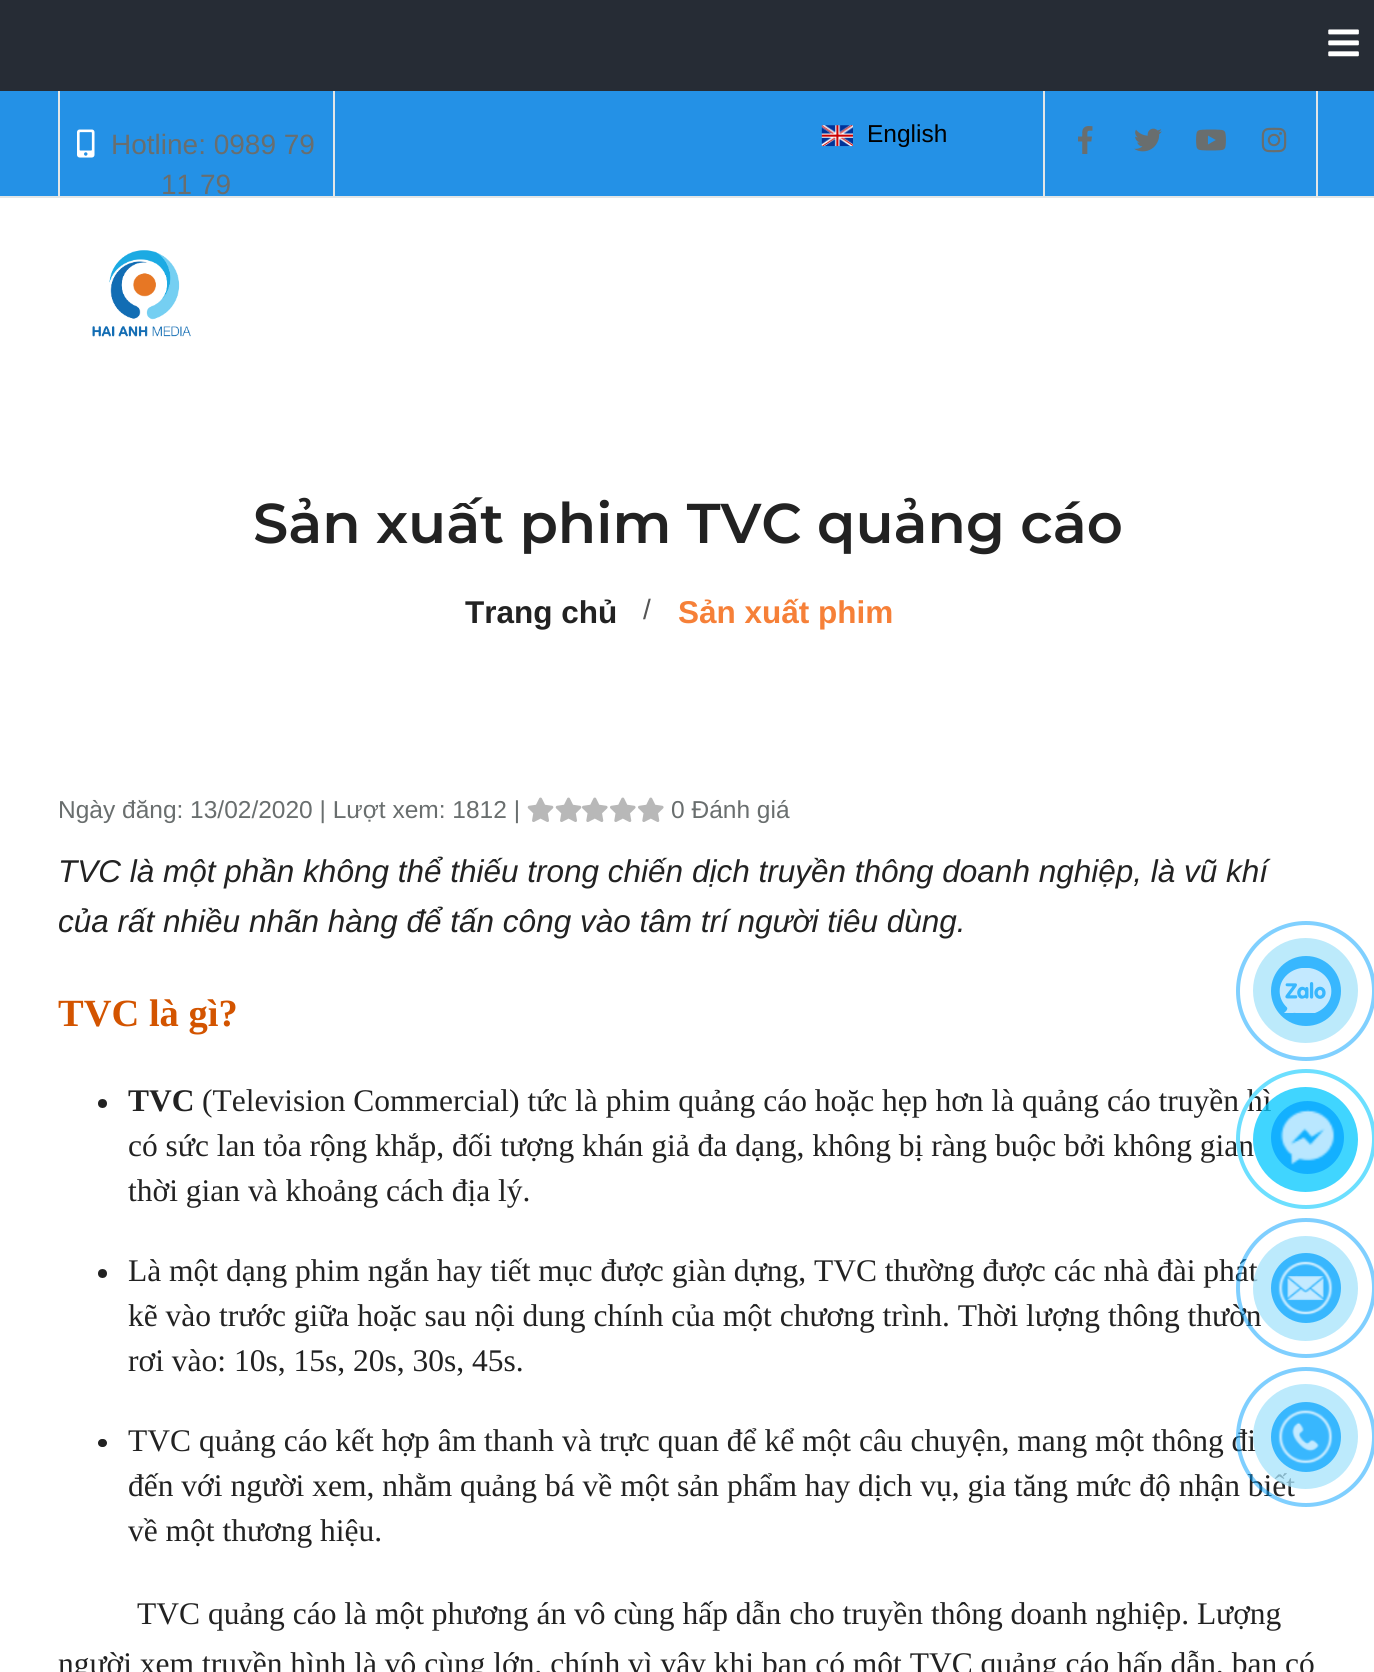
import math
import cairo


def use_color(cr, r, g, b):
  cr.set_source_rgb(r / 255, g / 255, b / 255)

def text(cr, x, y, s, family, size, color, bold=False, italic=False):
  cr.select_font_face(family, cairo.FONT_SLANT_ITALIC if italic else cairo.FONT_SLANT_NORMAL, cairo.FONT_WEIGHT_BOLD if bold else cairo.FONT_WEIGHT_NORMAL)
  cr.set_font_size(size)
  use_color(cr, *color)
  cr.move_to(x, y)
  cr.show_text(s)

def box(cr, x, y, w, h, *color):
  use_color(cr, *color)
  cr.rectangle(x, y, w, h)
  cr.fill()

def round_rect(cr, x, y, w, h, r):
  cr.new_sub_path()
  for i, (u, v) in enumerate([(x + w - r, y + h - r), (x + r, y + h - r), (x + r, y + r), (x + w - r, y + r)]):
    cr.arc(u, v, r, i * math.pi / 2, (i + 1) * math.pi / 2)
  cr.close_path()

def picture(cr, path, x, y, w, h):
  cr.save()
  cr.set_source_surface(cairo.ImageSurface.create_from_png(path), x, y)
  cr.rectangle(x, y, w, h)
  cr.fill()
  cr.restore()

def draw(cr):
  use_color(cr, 255, 255, 255)
  cr.paint()
  box(cr, 0, 0, 1374, 91, 38, 44, 53)
  picture(cr, "img_01.png", 1328, 29, 31, 28)
  box(cr, 0, 91, 1374, 105, 36, 145, 230)
  box(cr, 0, 196, 1374, 2, 226, 230, 231)
  box(cr, 333, 91, 2, 105, 226, 230, 231)
  box(cr, 58, 91, 2, 105, 226, 230, 231)
  picture(cr, "img_02.png", 77, 129, 18, 29)
  picture(cr, "img_03.png", 821, 125, 32, 22)
  box(cr, 1316, 91, 2, 105, 226, 230, 231)
  box(cr, 1043, 91, 2, 105, 226, 230, 231)
  picture(cr, "img_04.png", 1078, 126, 15, 28)
  picture(cr, "img_05.png", 1134, 128, 28, 24)
  picture(cr, "img_06.png", 1196, 129, 30, 22)
  picture(cr, "img_07.png", 1261, 127, 26, 26)
  picture(cr, "img_08.png", 92, 250, 99, 87)
  picture(cr, "img_09.png", 527, 797, 27, 25)
  picture(cr, "img_09.png", 555, 797, 27, 25)
  picture(cr, "img_10.png", 582, 797, 26, 25)
  picture(cr, "img_10.png", 610, 797, 26, 25)
  picture(cr, "img_10.png", 638, 797, 26, 25)
  use_color(cr, 34, 34, 34)
  cr.arc(102.5, 1103.5, 4.5, 0, 2 * math.pi)
  cr.fill()
  cr.arc(102.5, 1273.5, 4.5, 0, 2 * math.pi)
  cr.fill()
  round_rect(cr, 98, 1439, 9, 8, 4)
  cr.fill()
  cr.arc(1306, 991, 68, 0, 2 * math.pi)
  use_color(cr, 128, 208, 255)
  cr.set_line_width(4)
  cr.stroke()
  use_color(cr, 188, 234, 251)
  cr.arc(1305.5, 990.5, 52.5, 0, 2 * math.pi)
  cr.fill()
  use_color(cr, 56, 183, 254)
  cr.arc(1306, 991, 35, 0, 2 * math.pi)
  cr.fill()
  picture(cr, "img_11.png", 1279, 968, 53, 45)
  text(cr, 111, 154, "Hotline: 0989 79", "Liberation Sans", 28, (105, 110, 110))
  text(cr, 161, 194, "11 79", "Liberation Sans", 28, (105, 110, 110))
  text(cr, 867, 142, "English", "Liberation Sans", 24.5, (0, 0, 0))
  text(cr, 253, 543, "Sản xuất phim TVC quảng cáo", "Montserrat SemiBold", 56, (34, 34, 34))
  text(cr, 465, 623, "Trang chủ", "Liberation Sans", 31.5, (34, 34, 34), bold=True)
  text(cr, 643, 619, "/", "Liberation Sans", 28, (85, 85, 85))
  text(cr, 678, 623, "Sản xuất phim", "Liberation Sans", 31.5, (246, 128, 56), bold=True)
  text(cr, 58, 818, "Ngày đăng: 13/02/2020 | Lượt xem: 1812 |", "Liberation Sans", 24.5, (105, 110, 110))
  text(cr, 671, 818, "0 Đánh giá", "Liberation Sans", 24.5, (105, 110, 110))
  text(cr, 58, 882, "TVC là một phần không thể thiếu trong chiến dịch truyền thông doanh nghiệp, là vũ khí", "Liberation Sans", 31.5, (34, 34, 34), italic=True)
  text(cr, 58, 932, "của rất nhiều nhãn hàng để tấn công vào tâm trí người tiêu dùng.", "Liberation Sans", 31.5, (34, 34, 34), italic=True)
  text(cr, 58, 1026, "TVC là gì?", "Liberation Serif", 38.5, (211, 84, 0), bold=True)
  text(cr, 128, 1111, "TVC", "Liberation Serif", 31.5, (34, 34, 34), bold=True)
  text(cr, 202, 1111, "(Television Commercial) tức là phim quảng cáo hoặc hẹp hơn là quảng cáo truyền hì", "Liberation Serif", 31.5, (34, 34, 34))
  text(cr, 128, 1156, "có sức lan tỏa rộng khắp, đối tượng khán giả đa dạng, không bị ràng buộc bởi không gian", "Liberation Serif", 31.5, (34, 34, 34))
  text(cr, 128, 1201, "thời gian và khoảng cách địa lý.", "Liberation Serif", 31.5, (34, 34, 34))
  text(cr, 128, 1281, "Là một dạng phim ngắn hay tiết mục được giàn dựng, TVC thường được các nhà đài phát", "Liberation Serif", 31.5, (34, 34, 34))
  text(cr, 128, 1326, "kẽ vào trước giữa hoặc sau nội dung chính của một chương trình. Thời lượng thông thườn", "Liberation Serif", 31.5, (34, 34, 34))
  text(cr, 128, 1371, "rơi vào: 10s, 15s, 20s, 30s, 45s.", "Liberation Serif", 31.5, (34, 34, 34))
  text(cr, 128, 1451, "TVC quảng cáo kết hợp âm thanh và trực quan để kể một câu chuyện, mang một thông đi", "Liberation Serif", 31.5, (34, 34, 34))
  text(cr, 128, 1496, "đến với người xem, nhằm quảng bá về một sản phẩm hay dịch vụ, gia tăng mức độ nhận biết", "Liberation Serif", 31.5, (34, 34, 34))
  text(cr, 128, 1541, "về một thương hiệu.", "Liberation Serif", 31.5, (34, 34, 34))
  text(cr, 137, 1624, "TVC quảng cáo là một phương án vô cùng hấp dẫn cho truyền thông doanh nghiệp. Lượng", "Liberation Serif", 31.5, (34, 34, 34))
  text(cr, 58, 1674, "người xem truyền hình là vô cùng lớn, chính vì vậy khi bạn có một TVC quảng cáo hấp dẫn, bạn có", "Liberation Serif", 31.5, (34, 34, 34))
  cr.new_path()
  cr.arc(1306, 1139, 68, 0, 2 * math.pi)
  cr.set_source_rgba(0.42, 0.875, 1, 0.99)
  cr.stroke()
  cr.set_source_rgba(0, 0.78, 1, 0.75)
  cr.arc(1305.5, 1139.5, 52.5, 0, 2 * math.pi)
  cr.fill()
  cr.set_source_rgba(0, 0.631, 1, 0.7)
  cr.arc(1307.5, 1137.5, 36.5, 0, 2 * math.pi)
  cr.fill()
  picture(cr, "img_12.png", 1280, 1109, 55, 56)
  cr.arc(1306, 1288, 68, 0, 2 * math.pi)
  cr.set_source_rgba(0, 0.631, 1, 0.5)
  cr.stroke()
  cr.set_source_rgba(0.651, 0.89, 0.98, 0.75)
  cr.arc(1305.5, 1288.5, 52.5, 0, 2 * math.pi)
  cr.fill()
  cr.set_source_rgba(0, 0.631, 1, 0.7)
  cr.arc(1306, 1288, 35, 0, 2 * math.pi)
  cr.fill()
  picture(cr, "img_13.png", 1278, 1261, 55, 54)
  cr.arc(1306, 1437, 68, 0, 2 * math.pi)
  cr.set_source_rgba(0, 0.631, 1, 0.5)
  cr.stroke()
  cr.set_source_rgba(0.651, 0.89, 0.98, 0.75)
  cr.arc(1305.5, 1436.5, 52.5, 0, 2 * math.pi)
  cr.fill()
  cr.set_source_rgba(0, 0.631, 1, 0.7)
  cr.arc(1306, 1437, 35, 0, 2 * math.pi)
  cr.fill()
  picture(cr, "img_14.png", 1278, 1409, 55, 55)


surface = cairo.ImageSurface(cairo.FORMAT_RGB24, 1374, 1672)
cr = cairo.Context(surface)
options = cairo.FontOptions()
options.set_hint_metrics(cairo.HINT_METRICS_OFF)
options.set_hint_style(cairo.HINT_STYLE_NONE)
cr.set_font_options(options)
cr.set_miter_limit(4)
draw(cr)
surface.write_to_png("out.png")
